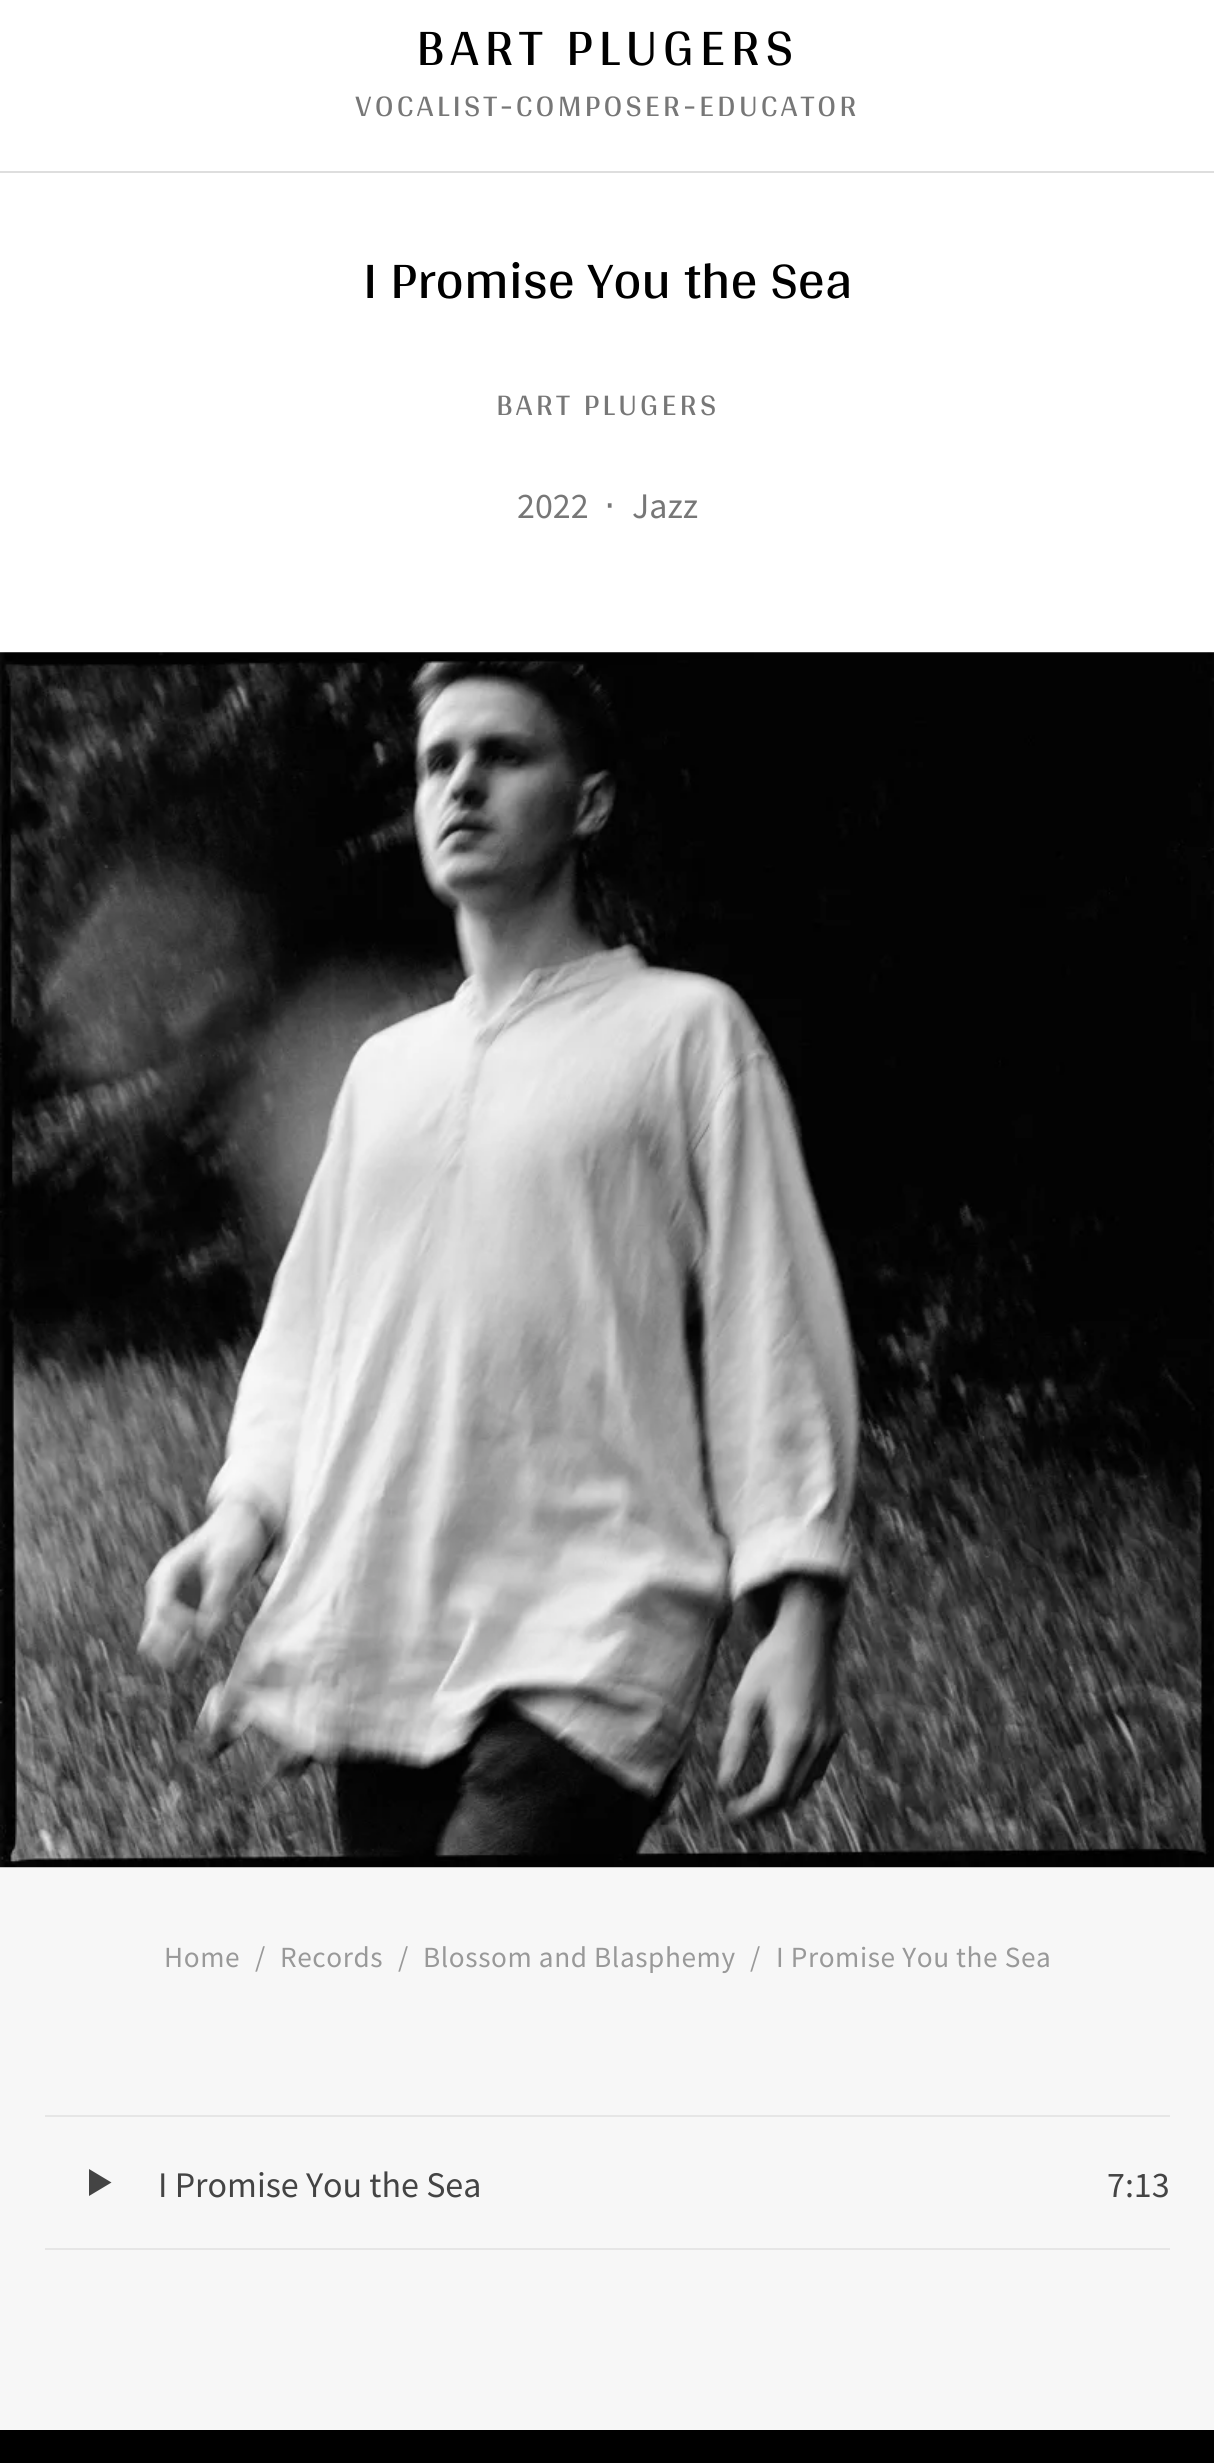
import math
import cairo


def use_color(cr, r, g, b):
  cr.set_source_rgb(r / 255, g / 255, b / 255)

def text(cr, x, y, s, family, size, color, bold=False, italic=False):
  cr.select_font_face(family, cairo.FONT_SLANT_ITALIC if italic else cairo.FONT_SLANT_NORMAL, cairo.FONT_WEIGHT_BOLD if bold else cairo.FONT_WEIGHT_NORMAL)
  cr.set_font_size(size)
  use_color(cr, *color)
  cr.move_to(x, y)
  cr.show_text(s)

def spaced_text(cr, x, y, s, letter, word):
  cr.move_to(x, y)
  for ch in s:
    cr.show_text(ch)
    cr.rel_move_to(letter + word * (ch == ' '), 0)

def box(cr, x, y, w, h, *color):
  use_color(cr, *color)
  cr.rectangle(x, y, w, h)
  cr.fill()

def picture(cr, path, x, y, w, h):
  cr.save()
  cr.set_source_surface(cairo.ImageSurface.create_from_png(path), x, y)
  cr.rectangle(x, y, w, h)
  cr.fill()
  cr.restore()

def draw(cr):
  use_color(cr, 247, 247, 247)
  cr.paint()
  box(cr, 0, 0, 1214, 171, 255, 255, 255)
  box(cr, 0, 171, 1214, 2, 222, 222, 222)
  box(cr, 0, 173, 1214, 1695, 255, 255, 255)
  picture(cr, "img_01.png", 0, 652, 1214, 1216)
  box(cr, 45, 2115, 1125, 2, 230, 230, 230)
  box(cr, 45, 2248, 1125, 2, 230, 230, 230)
  use_color(cr, 68, 68, 68)
  cr.new_path()
  cr.move_to(89, 2169)
  cr.line_to(89, 2196)
  cr.line_to(111.5, 2182.5)
  cr.close_path()
  cr.fill()
  box(cr, 0, 2430, 1214, 33, 0, 0, 0)
  cr.select_font_face("Arya")
  cr.set_font_size(54)
  spaced_text(cr, 416, 65, "BART PLUGERS", 5.4, 0)
  cr.set_font_size(31.5)
  use_color(cr, 119, 119, 119)
  spaced_text(cr, 355, 116, "VOCALIST-COMPOSER-EDUCATOR", 3.15, 0)
  text(cr, 363, 298, "I Promise You the Sea", "Arya", 54, (0, 0, 0))
  cr.set_font_size(31.5)
  use_color(cr, 119, 119, 119)
  spaced_text(cr, 496, 415, "BART PLUGERS", 3.15, 0)
  text(cr, 517, 518, "2022", "Source Sans Pro", 36, (119, 119, 119))
  text(cr, 604, 518, "⋅", "DejaVu Sans", 36, (119, 119, 119))
  text(cr, 632, 518, "Jazz", "Source Sans Pro", 36, (119, 119, 119))
  cr.set_font_size(29.25)
  use_color(cr, 153, 153, 153)
  spaced_text(cr, 164, 1967, "Home", 0.6, 0)
  spaced_text(cr, 255, 1967, "/", 0.6, 0)
  spaced_text(cr, 280, 1967, "Records", 0.6, 0)
  spaced_text(cr, 398, 1967, "/", 0.6, 0)
  spaced_text(cr, 423, 1967, "Blossom and Blasphemy", 0.6, 0)
  spaced_text(cr, 750, 1967, "/", 0.6, 0)
  spaced_text(cr, 776, 1967, "I Promise You the Sea", 0.6, 0)
  text(cr, 158, 2197, "I Promise You the Sea", "Source Sans Pro", 36, (68, 68, 68))
  text(cr, 1107, 2197, "7:13", "Source Sans Pro", 36, (68, 68, 68))


surface = cairo.ImageSurface(cairo.FORMAT_RGB24, 1214, 2463)
cr = cairo.Context(surface)
options = cairo.FontOptions()
options.set_hint_metrics(cairo.HINT_METRICS_OFF)
options.set_hint_style(cairo.HINT_STYLE_NONE)
cr.set_font_options(options)
cr.set_miter_limit(4)
draw(cr)
surface.write_to_png("out.png")
